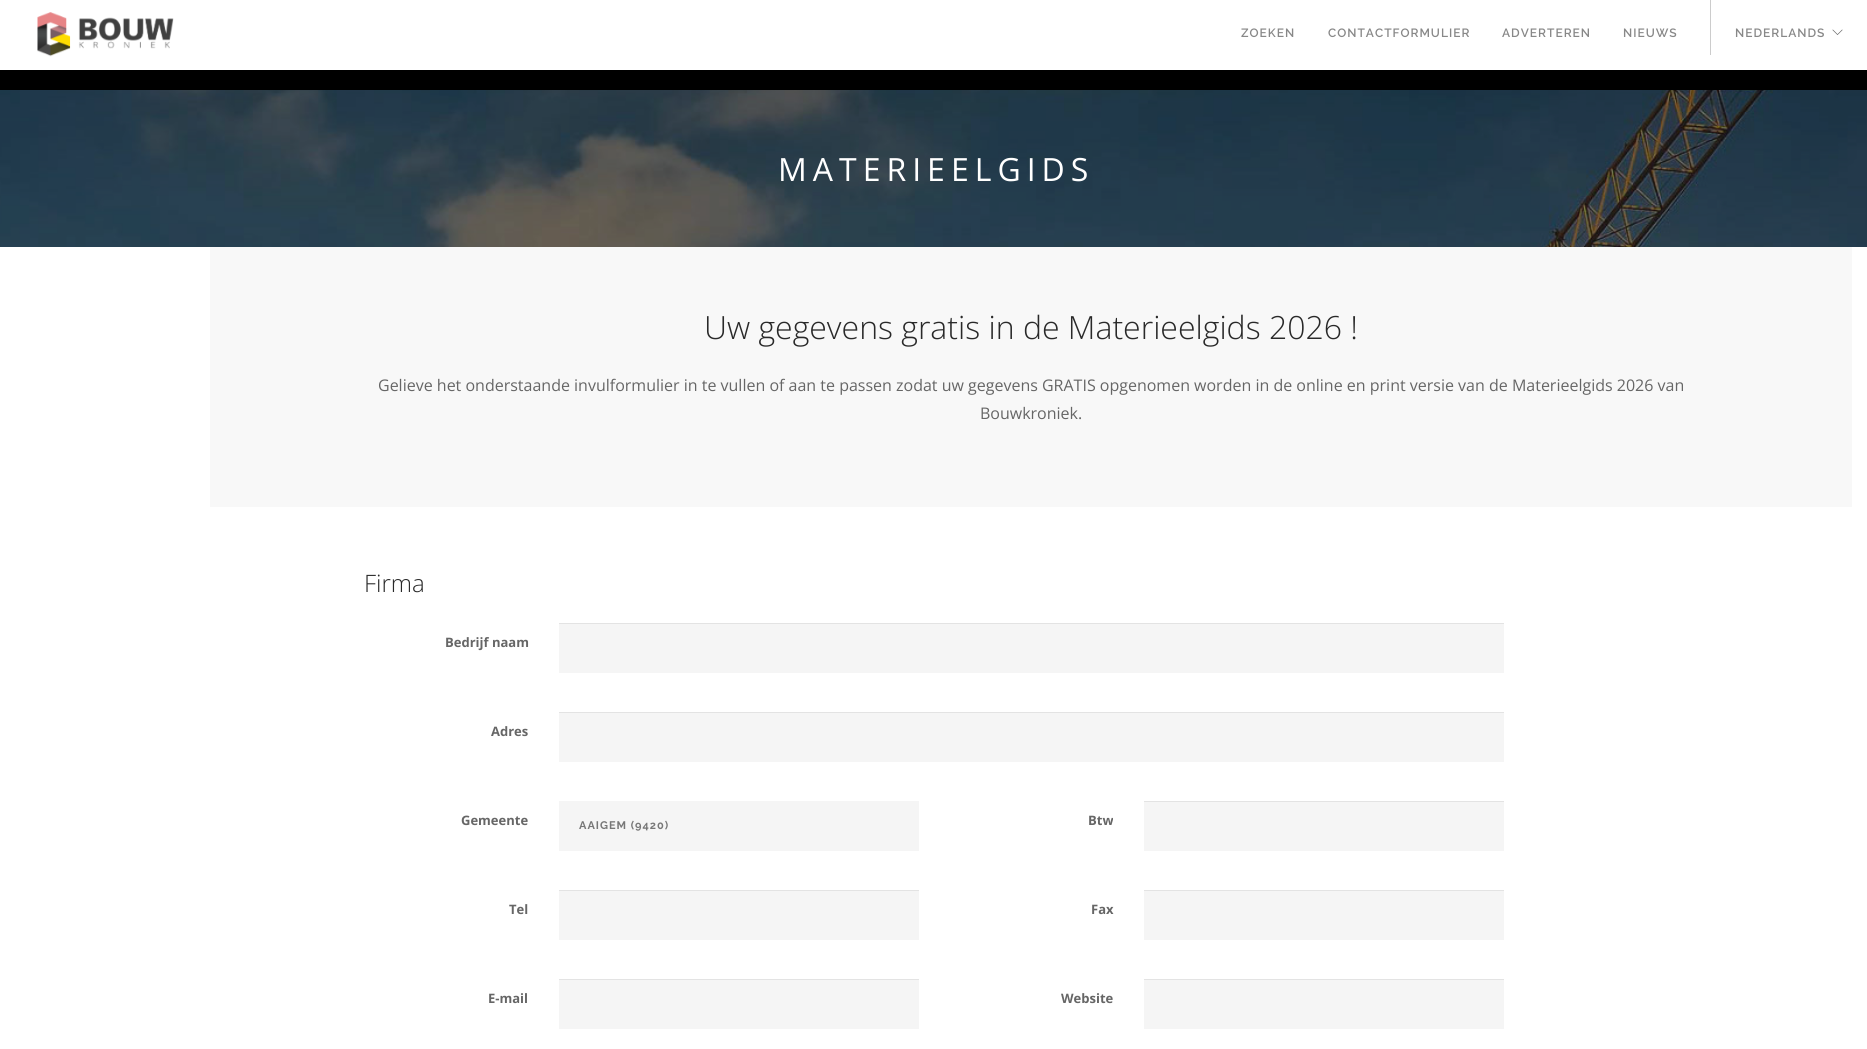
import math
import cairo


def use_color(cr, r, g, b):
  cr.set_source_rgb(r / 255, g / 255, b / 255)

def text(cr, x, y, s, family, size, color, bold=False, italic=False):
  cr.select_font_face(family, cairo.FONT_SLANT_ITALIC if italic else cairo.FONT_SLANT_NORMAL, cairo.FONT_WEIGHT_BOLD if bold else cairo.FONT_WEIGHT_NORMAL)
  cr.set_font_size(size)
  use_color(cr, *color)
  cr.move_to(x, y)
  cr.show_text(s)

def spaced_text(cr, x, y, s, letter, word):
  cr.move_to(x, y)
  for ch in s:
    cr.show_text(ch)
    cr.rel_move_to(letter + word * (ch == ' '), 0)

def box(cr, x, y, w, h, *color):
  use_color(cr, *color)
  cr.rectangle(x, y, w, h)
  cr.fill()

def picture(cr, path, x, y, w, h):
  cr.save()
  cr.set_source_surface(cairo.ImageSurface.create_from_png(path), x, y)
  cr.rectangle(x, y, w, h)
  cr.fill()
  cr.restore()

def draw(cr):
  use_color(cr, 255, 255, 255)
  cr.paint()
  box(cr, 0, 70, 1867, 20, 0, 0, 0)
  picture(cr, "img_01.png", 37, 12, 137, 45)
  box(cr, 1710, 0, 1, 55, 204, 204, 204)
  picture(cr, "img_02.png", 1832, 29, 11, 6)
  picture(cr, "img_03.png", 0, 90, 1867, 157)
  box(cr, 210, 247, 1642, 260, 248, 248, 248)
  box(cr, 559, 624, 945, 49, 245, 245, 245)
  box(cr, 559, 623, 945, 1, 227, 227, 227)
  box(cr, 559, 713, 945, 49, 245, 245, 245)
  box(cr, 559, 712, 945, 1, 227, 227, 227)
  box(cr, 559, 801, 360, 50, 245, 245, 245)
  box(cr, 1144, 802, 360, 49, 245, 245, 245)
  box(cr, 1144, 801, 360, 1, 227, 227, 227)
  box(cr, 559, 891, 360, 49, 245, 245, 245)
  box(cr, 559, 890, 360, 1, 227, 227, 227)
  box(cr, 1144, 891, 360, 49, 245, 245, 245)
  box(cr, 1144, 890, 360, 1, 227, 227, 227)
  box(cr, 559, 980, 360, 49, 245, 245, 245)
  box(cr, 559, 979, 360, 1, 227, 227, 227)
  box(cr, 1144, 980, 360, 49, 245, 245, 245)
  box(cr, 1144, 979, 360, 1, 227, 227, 227)
  cr.select_font_face("Raleway SemiBold")
  cr.set_font_size(12)
  use_color(cr, 136, 136, 136)
  spaced_text(cr, 1241, 37, "ZOEKEN", 1, 0)
  spaced_text(cr, 1328, 37, "CONTACTFORMULIER", 1, 0)
  spaced_text(cr, 1502, 37, "ADVERTEREN", 1, 0)
  spaced_text(cr, 1623, 37, "NIEUWS", 1, 0)
  spaced_text(cr, 1735, 37, "NEDERLANDS", 1, 0)
  cr.select_font_face("Open Sans")
  cr.set_font_size(32)
  use_color(cr, 255, 255, 255)
  spaced_text(cr, 778, 181, "MATERIEELGIDS", 6, 0)
  text(cr, 704, 339, "Uw gegevens gratis in de Materieelgids 2026 !", "Open Sans Light", 32, (41, 41, 41))
  text(cr, 378, 391, "Gelieve het onderstaande invulformulier in te vullen of aan te passen zodat uw gegevens GRATIS opgenomen worden in de online en print versie van de Materieelgids 2026 van", "Open Sans", 16, (102, 102, 102))
  text(cr, 980, 419, "Bouwkroniek.", "Open Sans", 16, (102, 102, 102))
  text(cr, 364, 592, "Firma", "Open Sans Light", 24, (41, 41, 41))
  text(cr, 445, 647, "Bedrijf naam", "Open Sans", 13, (102, 102, 102), bold=True)
  text(cr, 491, 736, "Adres", "Open Sans", 13, (102, 102, 102), bold=True)
  text(cr, 461, 825, "Gemeente", "Open Sans", 13, (102, 102, 102), bold=True)
  cr.select_font_face("Raleway", cairo.FONT_SLANT_NORMAL, cairo.FONT_WEIGHT_BOLD)
  cr.set_font_size(11)
  use_color(cr, 119, 119, 119)
  spaced_text(cr, 579, 829, "AAIGEM (9420)", 1, 0)
  text(cr, 1088, 825, "Btw", "Open Sans", 13, (102, 102, 102), bold=True)
  text(cr, 509, 914, "Tel", "Open Sans", 13, (102, 102, 102), bold=True)
  text(cr, 1091, 914, "Fax", "Open Sans", 13, (102, 102, 102), bold=True)
  text(cr, 488, 1003, "E-mail", "Open Sans", 13, (102, 102, 102), bold=True)
  text(cr, 1061, 1003, "Website", "Open Sans", 13, (102, 102, 102), bold=True)


surface = cairo.ImageSurface(cairo.FORMAT_RGB24, 1867, 1049)
cr = cairo.Context(surface)
options = cairo.FontOptions()
options.set_hint_metrics(cairo.HINT_METRICS_OFF)
options.set_hint_style(cairo.HINT_STYLE_NONE)
cr.set_font_options(options)
cr.set_miter_limit(4)
draw(cr)
surface.write_to_png("out.png")
